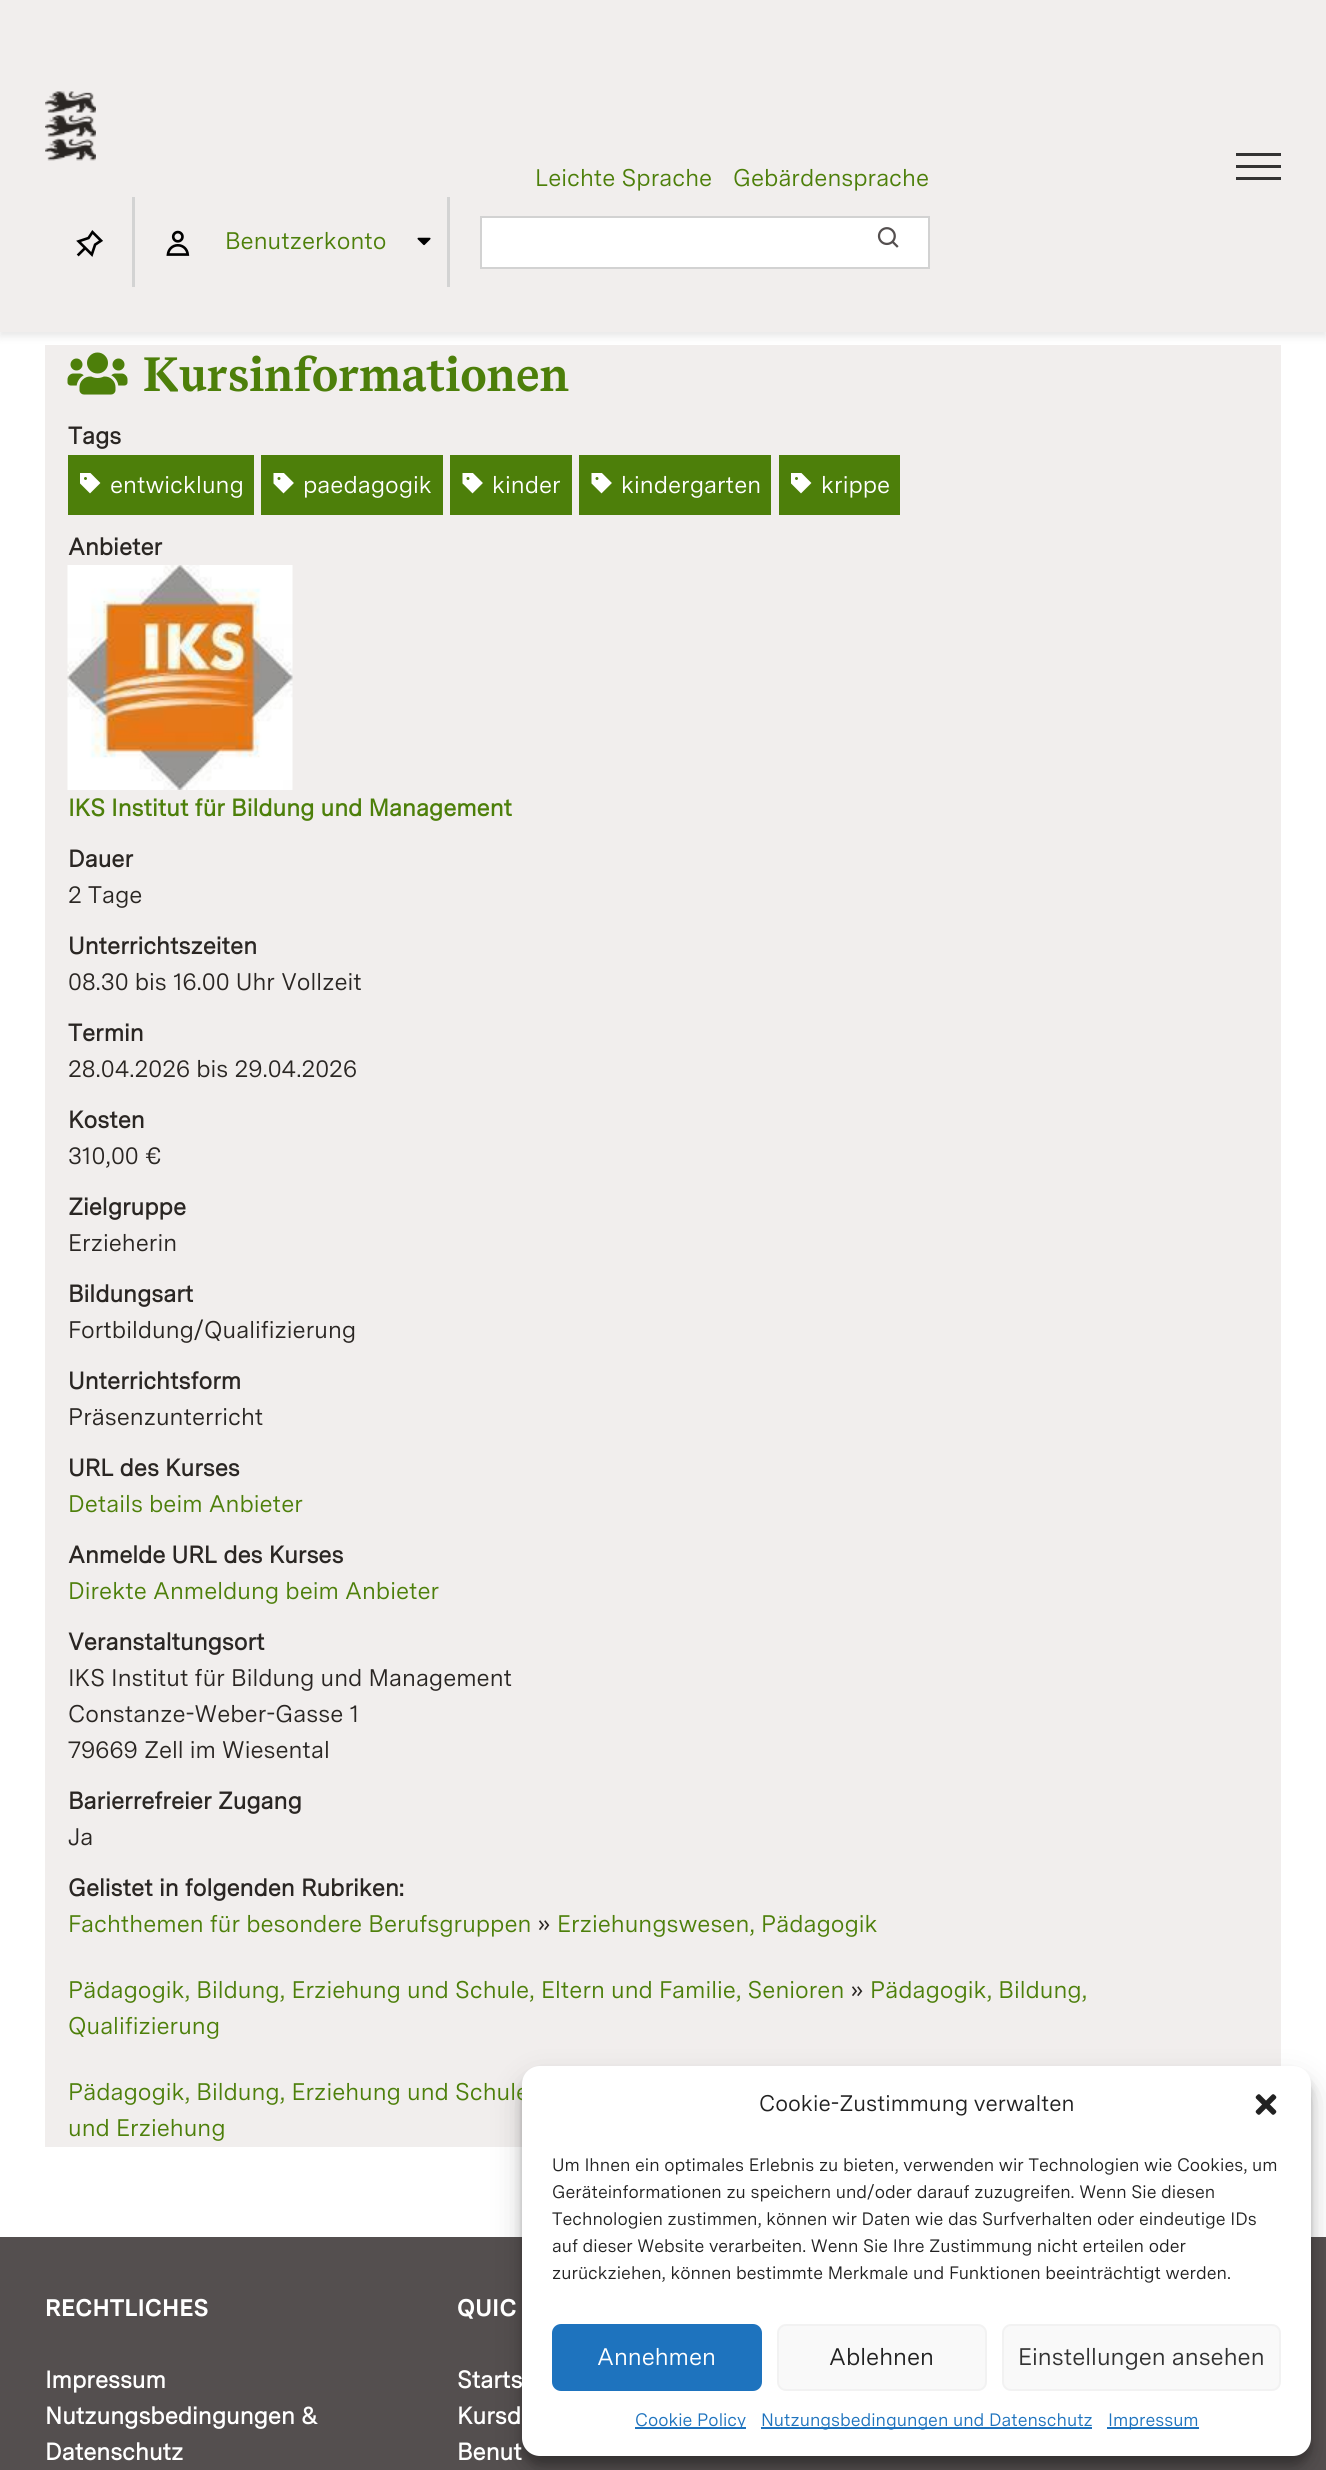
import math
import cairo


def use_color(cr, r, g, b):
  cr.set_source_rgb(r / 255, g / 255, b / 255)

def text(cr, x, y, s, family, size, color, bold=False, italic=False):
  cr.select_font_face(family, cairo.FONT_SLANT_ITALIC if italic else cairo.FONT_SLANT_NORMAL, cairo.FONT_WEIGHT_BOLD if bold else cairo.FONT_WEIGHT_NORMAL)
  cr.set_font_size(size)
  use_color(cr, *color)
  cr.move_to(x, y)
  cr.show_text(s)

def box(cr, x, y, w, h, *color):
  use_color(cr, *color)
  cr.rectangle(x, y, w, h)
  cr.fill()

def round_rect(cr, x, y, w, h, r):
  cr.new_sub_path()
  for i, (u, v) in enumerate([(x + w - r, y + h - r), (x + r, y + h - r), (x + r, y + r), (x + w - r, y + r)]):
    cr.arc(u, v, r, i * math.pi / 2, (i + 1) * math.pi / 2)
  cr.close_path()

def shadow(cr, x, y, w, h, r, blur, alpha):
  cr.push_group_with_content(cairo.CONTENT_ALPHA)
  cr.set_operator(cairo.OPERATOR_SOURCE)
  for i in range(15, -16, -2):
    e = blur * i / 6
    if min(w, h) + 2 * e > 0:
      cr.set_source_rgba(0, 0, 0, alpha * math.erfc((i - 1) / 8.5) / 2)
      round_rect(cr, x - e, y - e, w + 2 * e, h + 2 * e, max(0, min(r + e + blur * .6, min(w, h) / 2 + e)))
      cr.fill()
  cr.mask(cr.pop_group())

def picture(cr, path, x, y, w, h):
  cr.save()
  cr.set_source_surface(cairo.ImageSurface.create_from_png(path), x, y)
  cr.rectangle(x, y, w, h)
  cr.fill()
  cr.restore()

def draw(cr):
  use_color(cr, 255, 255, 255)
  cr.paint()
  box(cr, 45, 345, 1236, 1802, 241, 238, 237)
  use_color(cr, 0, 0, 0)
  shadow(cr, 0, 5, 1326, 331, 0, 4.5, 0.1)
  box(cr, 0, 0, 1326, 332, 241, 238, 237)
  picture(cr, "img_01.png", 45, 91, 51, 70)
  box(cr, 132, 197, 3, 90, 211, 211, 211)
  picture(cr, "img_02.png", 76, 230, 27, 27)
  box(cr, 447, 197, 3, 90, 211, 211, 211)
  picture(cr, "img_03.png", 166, 230, 24, 26)
  picture(cr, "img_04.png", 417, 237, 14, 9)
  use_color(cr, 255, 255, 255)
  cr.rectangle(481, 217, 448, 51)
  cr.fill_preserve()
  use_color(cr, 210, 210, 210)
  cr.stroke()
  picture(cr, "img_05.png", 877, 227, 22, 21)
  box(cr, 1236, 153, 45, 3, 51, 51, 51)
  box(cr, 1236, 165, 45, 3, 51, 51, 51)
  box(cr, 1236, 177, 45, 3, 51, 51, 51)
  picture(cr, "img_06.png", 67, 352, 61, 43)
  box(cr, 68, 455, 186, 60, 77, 127, 10)
  picture(cr, "img_07.png", 80, 473, 21, 21)
  box(cr, 261, 455, 182, 60, 77, 127, 10)
  picture(cr, "img_08.png", 273, 473, 21, 21)
  box(cr, 450, 455, 122, 60, 77, 127, 10)
  picture(cr, "img_08.png", 462, 473, 21, 21)
  box(cr, 579, 455, 192, 60, 77, 127, 10)
  picture(cr, "img_08.png", 591, 473, 21, 21)
  box(cr, 779, 455, 121, 60, 77, 127, 10)
  picture(cr, "img_07.png", 791, 473, 21, 21)
  picture(cr, "img_09.png", 67, 565, 226, 225)
  box(cr, 0, 2237, 1326, 233, 84, 79, 79)
  use_color(cr, 0, 0, 0)
  shadow(cr, 522, 2075, 789, 390, 18, 4.5, 0.23)
  shadow(cr, 522, 2081, 789, 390, 18, 15, 0.19)
  text(cr, 535, 186, "Leichte Sprache", "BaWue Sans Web", 24, (77, 127, 10))
  text(cr, 733, 186, "Gebärdensprache", "BaWue Sans Web", 24, (77, 127, 10))
  text(cr, 225, 249, "Benutzerkonto", "BaWue Sans Web", 24, (77, 127, 10))
  text(cr, 143, 391, "Kursinformationen", "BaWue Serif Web", 48, (77, 127, 10), bold=True)
  text(cr, 68, 444, "Tags", "BaWue Sans Web", 24, (42, 38, 35), bold=True)
  text(cr, 110, 493, "entwicklung", "BaWue Sans Web", 24, (255, 255, 255))
  text(cr, 303, 493, "paedagogik", "BaWue Sans Web", 24, (255, 255, 255))
  text(cr, 492, 493, "kinder", "BaWue Sans Web", 24, (255, 255, 255))
  text(cr, 621, 493, "kindergarten", "BaWue Sans Web", 24, (255, 255, 255))
  text(cr, 821, 493, "krippe", "BaWue Sans Web", 24, (255, 255, 255))
  text(cr, 68, 555, "Anbieter", "BaWue Sans Web", 24, (42, 38, 35), bold=True)
  text(cr, 68, 816, "IKS Institut für Bildung und Management", "BaWue Sans Web", 24, (77, 127, 10), bold=True)
  text(cr, 68, 867, "Dauer", "BaWue Sans Web", 24, (42, 38, 35), bold=True)
  text(cr, 68, 903, "2 Tage", "BaWue Sans Web", 24, (42, 38, 35))
  text(cr, 68, 954, "Unterrichtszeiten", "BaWue Sans Web", 24, (42, 38, 35), bold=True)
  text(cr, 68, 990, "08.30 bis 16.00 Uhr Vollzeit", "BaWue Sans Web", 24, (42, 38, 35))
  text(cr, 68, 1041, "Termin", "BaWue Sans Web", 24, (42, 38, 35), bold=True)
  text(cr, 68, 1077, "28.04.2026 bis 29.04.2026", "BaWue Sans Web", 24, (42, 38, 35))
  text(cr, 68, 1128, "Kosten", "BaWue Sans Web", 24, (42, 38, 35), bold=True)
  text(cr, 68, 1164, "310,00 €", "BaWue Sans Web", 24, (42, 38, 35))
  text(cr, 68, 1215, "Zielgruppe", "BaWue Sans Web", 24, (42, 38, 35), bold=True)
  text(cr, 68, 1251, "Erzieherin", "BaWue Sans Web", 24, (42, 38, 35))
  text(cr, 68, 1302, "Bildungsart", "BaWue Sans Web", 24, (42, 38, 35), bold=True)
  text(cr, 68, 1338, "Fortbildung/Qualifizierung", "BaWue Sans Web", 24, (42, 38, 35))
  text(cr, 68, 1389, "Unterrichtsform", "BaWue Sans Web", 24, (42, 38, 35), bold=True)
  text(cr, 68, 1425, "Präsenzunterricht", "BaWue Sans Web", 24, (42, 38, 35))
  text(cr, 68, 1476, "URL des Kurses", "BaWue Sans Web", 24, (42, 38, 35), bold=True)
  text(cr, 68, 1512, "Details beim Anbieter", "BaWue Sans Web", 24, (77, 127, 10))
  text(cr, 68, 1563, "Anmelde URL des Kurses", "BaWue Sans Web", 24, (42, 38, 35), bold=True)
  text(cr, 68, 1599, "Direkte Anmeldung beim Anbieter", "BaWue Sans Web", 24, (77, 127, 10))
  text(cr, 68, 1650, "Veranstaltungsort", "BaWue Sans Web", 24, (42, 38, 35), bold=True)
  text(cr, 68, 1686, "IKS Institut für Bildung und Management", "BaWue Sans Web", 24, (42, 38, 35))
  text(cr, 68, 1722, "Constanze-Weber-Gasse 1", "BaWue Sans Web", 24, (42, 38, 35))
  text(cr, 68, 1758, "79669 Zell im Wiesental", "BaWue Sans Web", 24, (42, 38, 35))
  text(cr, 68, 1809, "Barierrefreier Zugang", "BaWue Sans Web", 24, (42, 38, 35), bold=True)
  text(cr, 68, 1845, "Ja", "BaWue Sans Web", 24, (42, 38, 35))
  text(cr, 68, 1896, "Gelistet in folgenden Rubriken:", "BaWue Sans Web", 24, (42, 38, 35), bold=True)
  text(cr, 68, 1932, "Fachthemen für besondere Berufsgruppen", "BaWue Sans Web", 24, (77, 127, 10))
  text(cr, 537, 1932, "»", "BaWue Sans Web", 24, (42, 38, 35))
  text(cr, 557, 1932, "Erziehungswesen, Pädagogik", "BaWue Sans Web", 24, (77, 127, 10))
  text(cr, 68, 1998, "Pädagogik, Bildung, Erziehung und Schule, Eltern und Familie, Senioren", "BaWue Sans Web", 24, (77, 127, 10))
  text(cr, 850, 1998, "»", "BaWue Sans Web", 24, (42, 38, 35))
  text(cr, 870, 1998, "Pädagogik, Bildung,", "BaWue Sans Web", 24, (77, 127, 10))
  text(cr, 68, 2034, "Qualifizierung", "BaWue Sans Web", 24, (77, 127, 10))
  text(cr, 68, 2100, "Pädagogik, Bildung, Erziehung und Schule", "BaWue Sans Web", 24, (77, 127, 10))
  text(cr, 68, 2136, "und Erziehung", "BaWue Sans Web", 24, (77, 127, 10))
  text(cr, 45, 2316, "RECHTLICHES", "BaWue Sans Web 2", 24, (255, 255, 255), bold=True)
  text(cr, 45, 2388, "Impressum", "BaWue Sans Web", 24, (255, 255, 255), bold=True)
  text(cr, 45, 2424, "Nutzungsbedingungen &", "BaWue Sans Web", 24, (255, 255, 255), bold=True)
  text(cr, 45, 2460, "Datenschutz", "BaWue Sans Web", 24, (255, 255, 255), bold=True)
  text(cr, 457, 2316, "QUIC", "BaWue Sans Web 2", 24, (255, 255, 255), bold=True)
  text(cr, 457, 2388, "Starts", "BaWue Sans Web", 24, (255, 255, 255), bold=True)
  text(cr, 457, 2424, "Kursd", "BaWue Sans Web", 24, (255, 255, 255), bold=True)
  text(cr, 457, 2460, "Benut", "BaWue Sans Web", 24, (255, 255, 255), bold=True)
  round_rect(cr, 522, 2066, 789, 390, 18)
  cr.fill()
  text(cr, 759, 2111, "Cookie-Zustimmung verwalten", "BaWue Sans Web", 22.5, (34, 34, 34))
  picture(cr, "img_10.png", 1255, 2094, 22, 21)
  text(cr, 552, 2171, "Um Ihnen ein optimales Erlebnis zu bieten, verwenden wir Technologien wie Cookies, um", "BaWue Sans Web", 18, (34, 34, 34))
  text(cr, 552, 2198, "Geräteinformationen zu speichern und/oder darauf zuzugreifen. Wenn Sie diesen", "BaWue Sans Web", 18, (34, 34, 34))
  text(cr, 552, 2225, "Technologien zustimmen, können wir Daten wie das Surfverhalten oder eindeutige IDs", "BaWue Sans Web", 18, (34, 34, 34))
  text(cr, 552, 2252, "auf dieser Website verarbeiten. Wenn Sie Ihre Zustimmung nicht erteilen oder", "BaWue Sans Web", 18, (34, 34, 34))
  text(cr, 552, 2279, "zurückziehen, können bestimmte Merkmale und Funktionen beeinträchtigt werden.", "BaWue Sans Web", 18, (34, 34, 34))
  use_color(cr, 30, 115, 190)
  round_rect(cr, 553, 2325, 208, 65, 8)
  cr.fill_preserve()
  cr.stroke()
  text(cr, 597, 2365, "Annehmen", "BaWue Sans Web", 24, (255, 255, 255))
  use_color(cr, 249, 249, 249)
  round_rect(cr, 778, 2325, 208, 65, 8)
  cr.fill_preserve()
  use_color(cr, 242, 242, 242)
  cr.stroke()
  text(cr, 829, 2365, "Ablehnen", "BaWue Sans Web", 24, (34, 34, 34))
  use_color(cr, 249, 249, 249)
  round_rect(cr, 1003, 2325, 277, 65, 8)
  cr.fill_preserve()
  use_color(cr, 242, 242, 242)
  cr.stroke()
  text(cr, 1018, 2365, "Einstellungen ansehen", "BaWue Sans Web", 24, (51, 51, 51))
  box(cr, 635, 2427, 111, 2, 30, 115, 190)
  text(cr, 635, 2426, "Cookie Policy", "BaWue Sans Web", 18, (30, 115, 190))
  box(cr, 761, 2427, 331, 2, 30, 115, 190)
  text(cr, 761, 2426, "Nutzungsbedingungen und Datenschutz", "BaWue Sans Web", 18, (30, 115, 190))
  box(cr, 1107, 2427, 92, 2, 30, 115, 190)
  text(cr, 1108, 2426, "Impressum", "BaWue Sans Web", 18, (30, 115, 190))


surface = cairo.ImageSurface(cairo.FORMAT_RGB24, 1326, 2470)
cr = cairo.Context(surface)
options = cairo.FontOptions()
options.set_hint_metrics(cairo.HINT_METRICS_OFF)
options.set_hint_style(cairo.HINT_STYLE_NONE)
cr.set_font_options(options)
cr.set_miter_limit(4)
draw(cr)
surface.write_to_png("out.png")
